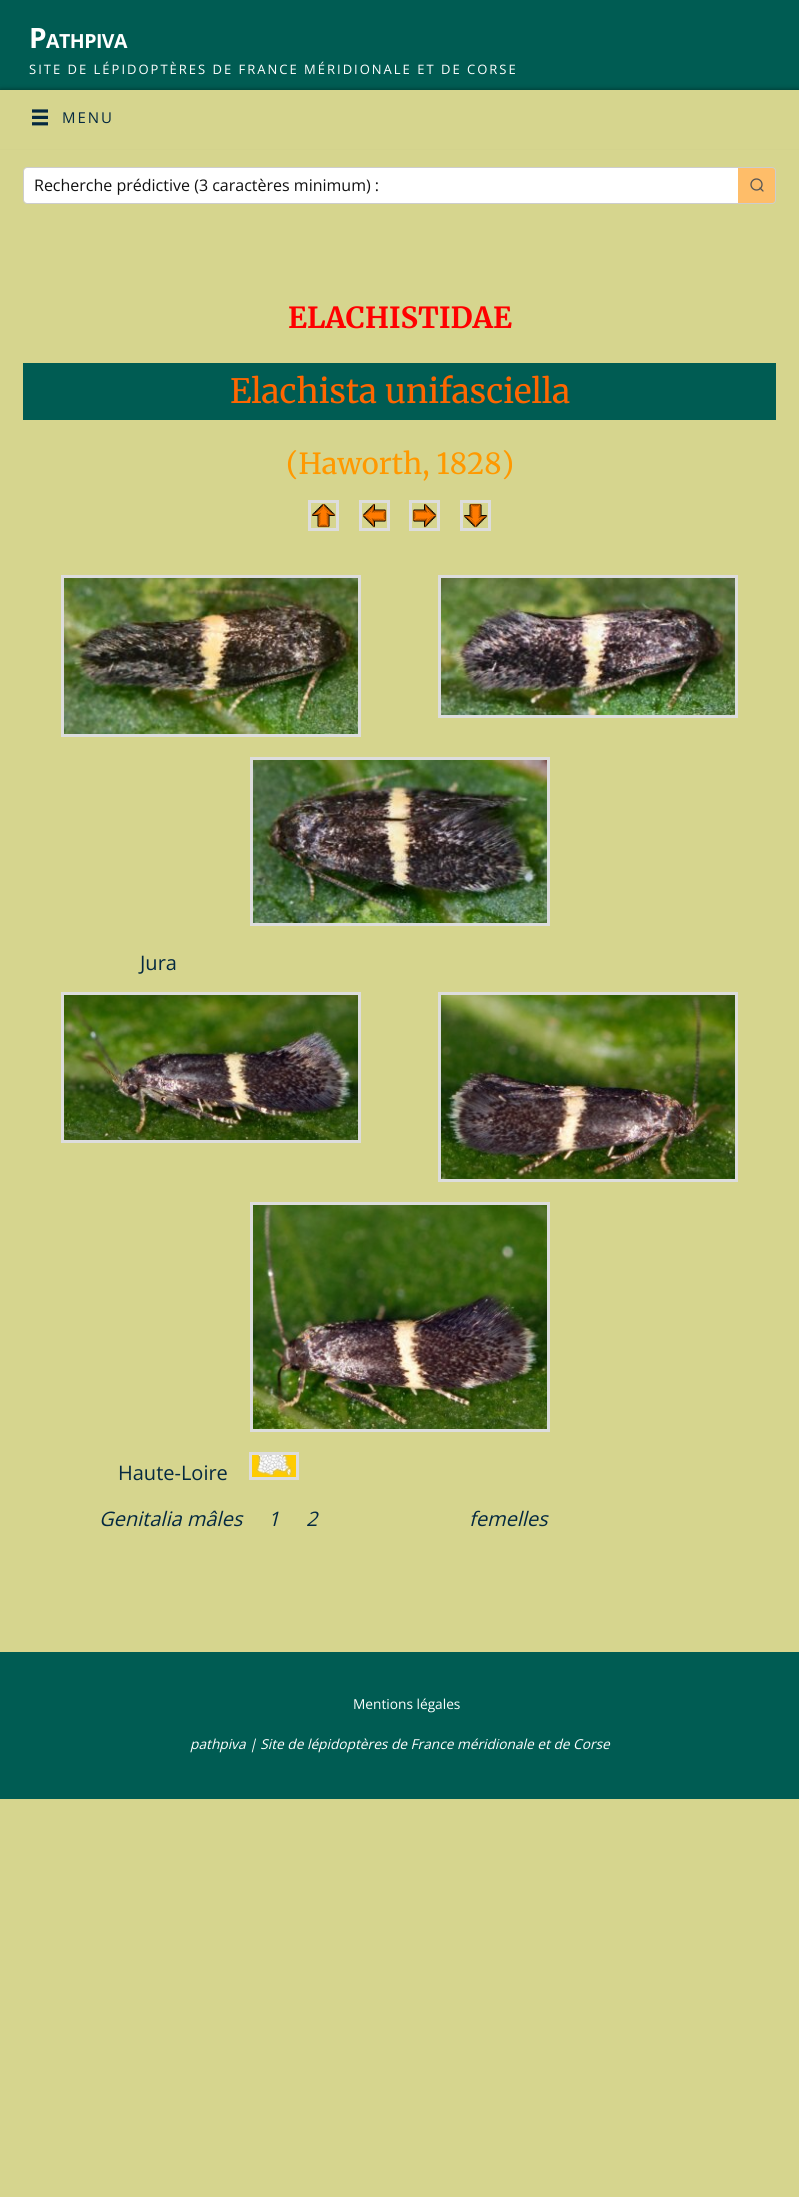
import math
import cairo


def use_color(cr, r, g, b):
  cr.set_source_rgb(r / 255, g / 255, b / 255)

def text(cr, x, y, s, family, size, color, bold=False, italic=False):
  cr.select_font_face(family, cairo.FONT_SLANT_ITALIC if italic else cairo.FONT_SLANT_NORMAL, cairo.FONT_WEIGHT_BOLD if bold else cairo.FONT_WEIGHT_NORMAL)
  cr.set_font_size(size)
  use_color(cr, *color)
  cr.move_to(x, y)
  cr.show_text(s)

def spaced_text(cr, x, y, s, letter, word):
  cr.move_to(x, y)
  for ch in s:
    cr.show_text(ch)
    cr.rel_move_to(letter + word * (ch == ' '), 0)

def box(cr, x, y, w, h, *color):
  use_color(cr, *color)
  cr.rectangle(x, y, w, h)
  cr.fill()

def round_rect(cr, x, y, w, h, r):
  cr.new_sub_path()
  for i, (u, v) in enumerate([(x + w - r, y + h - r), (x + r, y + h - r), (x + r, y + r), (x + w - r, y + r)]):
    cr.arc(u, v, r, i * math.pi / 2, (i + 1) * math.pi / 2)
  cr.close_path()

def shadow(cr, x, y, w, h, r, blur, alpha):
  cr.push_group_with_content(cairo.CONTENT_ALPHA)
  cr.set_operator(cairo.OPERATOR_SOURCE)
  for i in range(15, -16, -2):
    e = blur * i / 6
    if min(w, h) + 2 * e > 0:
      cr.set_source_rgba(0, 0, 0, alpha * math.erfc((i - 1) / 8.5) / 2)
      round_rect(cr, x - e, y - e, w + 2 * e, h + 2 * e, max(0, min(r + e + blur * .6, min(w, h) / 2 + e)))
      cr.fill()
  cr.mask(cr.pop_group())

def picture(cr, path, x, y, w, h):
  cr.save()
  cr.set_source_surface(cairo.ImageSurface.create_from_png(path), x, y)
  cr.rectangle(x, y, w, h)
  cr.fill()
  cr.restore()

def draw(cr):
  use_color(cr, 214, 213, 142)
  cr.paint()
  box(cr, 0, 0, 799, 90, 0, 92, 83)
  use_color(cr, 0, 0, 0)
  shadow(cr, 0, 90, 799, 54, 0, 2.5, 0.5)
  box(cr, 0, 90, 799, 59, 214, 213, 142)
  picture(cr, "img_01.png", 32, 109, 16, 17)
  round_rect(cr, 23.5, 167.5, 752, 36, 3.5)
  use_color(cr, 205, 205, 205)
  cr.set_line_width(1)
  cr.stroke()
  use_color(cr, 255, 255, 255)
  cr.new_path()
  cr.move_to(27, 168)
  cr.line_to(738, 168)
  cr.line_to(738, 203)
  cr.line_to(27, 203)
  cr.curve_to(25.5, 203, 24, 201.5, 24, 200)
  cr.line_to(24, 171)
  cr.curve_to(24, 169.5, 25.5, 168, 27, 168)
  cr.close_path()
  cr.fill()
  use_color(cr, 254, 189, 105)
  cr.new_path()
  cr.move_to(738, 168)
  cr.line_to(772, 168)
  cr.curve_to(773.5, 168, 775, 169.5, 775, 171)
  cr.line_to(775, 200)
  cr.curve_to(775, 201.5, 773.5, 203, 772, 203)
  cr.line_to(738, 203)
  cr.close_path()
  cr.fill()
  cr.arc(756.5, 184.5, 5.5, 0, 2 * math.pi)
  use_color(cr, 85, 85, 85)
  cr.set_line_width(1.3)
  cr.stroke()
  cr.new_path()
  cr.move_to(763, 191)
  cr.line_to(760, 188)
  cr.set_line_cap(cairo.LINE_CAP_ROUND)
  cr.set_line_join(cairo.LINE_JOIN_ROUND)
  cr.stroke()
  box(cr, 23, 363, 753, 57, 0, 92, 83)
  cr.rectangle(309.5, 501.5, 28, 28)
  use_color(cr, 221, 221, 221)
  cr.set_line_width(3)
  cr.set_line_cap(cairo.LINE_CAP_BUTT)
  cr.set_line_join(cairo.LINE_JOIN_MITER)
  cr.stroke()
  cr.rectangle(360.5, 501.5, 28, 28)
  cr.stroke()
  cr.rectangle(410.5, 501.5, 28, 28)
  cr.stroke()
  cr.rectangle(461.5, 501.5, 28, 28)
  cr.stroke()
  picture(cr, "img_02.png", 311, 503, 25, 25)
  picture(cr, "img_03.png", 362, 503, 25, 25)
  picture(cr, "img_04.png", 412, 503, 25, 25)
  picture(cr, "img_05.png", 463, 503, 25, 25)
  cr.rectangle(62.5, 576.5, 297, 159)
  cr.stroke()
  picture(cr, "img_06.png", 64, 578, 294, 156)
  cr.rectangle(439.5, 576.5, 297, 140)
  cr.stroke()
  picture(cr, "img_07.png", 441, 578, 294, 137)
  cr.rectangle(251.5, 758.5, 297, 166)
  cr.stroke()
  picture(cr, "img_08.png", 253, 760, 294, 163)
  cr.rectangle(62.5, 993.5, 297, 148)
  cr.stroke()
  picture(cr, "img_09.png", 64, 995, 294, 145)
  cr.rectangle(439.5, 993.5, 297, 187)
  cr.stroke()
  picture(cr, "img_10.png", 441, 995, 294, 184)
  cr.rectangle(251.5, 1203.5, 297, 227)
  cr.stroke()
  picture(cr, "img_11.png", 253, 1205, 294, 224)
  cr.rectangle(250.5, 1453.5, 47, 25)
  cr.stroke()
  picture(cr, "img_12.png", 252, 1455, 44, 22)
  box(cr, 0, 1652, 799, 147, 0, 92, 83)
  cr.select_font_face("Open Sans", cairo.FONT_SLANT_NORMAL, cairo.FONT_WEIGHT_BOLD)
  cr.set_font_size(28)
  use_color(cr, 255, 255, 255)
  spaced_text(cr, 29, 48, "P", -0.5, 0)
  cr.set_font_size(19.5)
  spaced_text(cr, 46, 48, "ATHPIVA", -0.5, 0)
  cr.select_font_face("Open Sans")
  cr.set_font_size(13)
  spaced_text(cr, 29, 74, "SITE DE LÉPIDOPTÈRES DE FRANCE MÉRIDIONALE ET DE CORSE", 2, 0)
  cr.set_font_size(15)
  use_color(cr, 4, 41, 64)
  spaced_text(cr, 62, 123, "MENU", 2, 0)
  text(cr, 34, 191, "Recherche prédictive (3 caractères minimum) :", "Open Sans", 16, (17, 17, 17))
  text(cr, 288, 328, "ELACHISTIDAE", "Merriweather", 29, (255, 0, 0), bold=True)
  text(cr, 230, 403, "Elachista unifasciella", "Merriweather", 33.5, (255, 102, 0))
  text(cr, 286, 474, "(Haworth, 1828)", "Merriweather", 29, (255, 153, 0))
  text(cr, 140, 970, "Jura", "Open Sans", 20, (4, 41, 64))
  text(cr, 118, 1480, "Haute-Loire", "Open Sans", 20, (4, 41, 64))
  text(cr, 99, 1526, "Genitalia mâles", "Open Sans", 20, (4, 41, 64), italic=True)
  text(cr, 268, 1526, "1", "Open Sans", 20, (4, 41, 64), italic=True)
  text(cr, 306, 1526, "2", "Open Sans", 20, (4, 41, 64), italic=True)
  text(cr, 469, 1526, "femelles", "Open Sans", 20, (4, 41, 64), italic=True)
  text(cr, 353, 1709, "Mentions légales", "Open Sans", 13.7, (255, 255, 255))
  text(cr, 190, 1749, "pathpiva | Site de lépidoptères de France méridionale et de Corse", "Open Sans", 13.7, (255, 255, 255), italic=True)


surface = cairo.ImageSurface(cairo.FORMAT_RGB24, 799, 2197)
cr = cairo.Context(surface)
options = cairo.FontOptions()
options.set_hint_metrics(cairo.HINT_METRICS_OFF)
options.set_hint_style(cairo.HINT_STYLE_NONE)
cr.set_font_options(options)
cr.set_miter_limit(4)
draw(cr)
surface.write_to_png("out.png")
